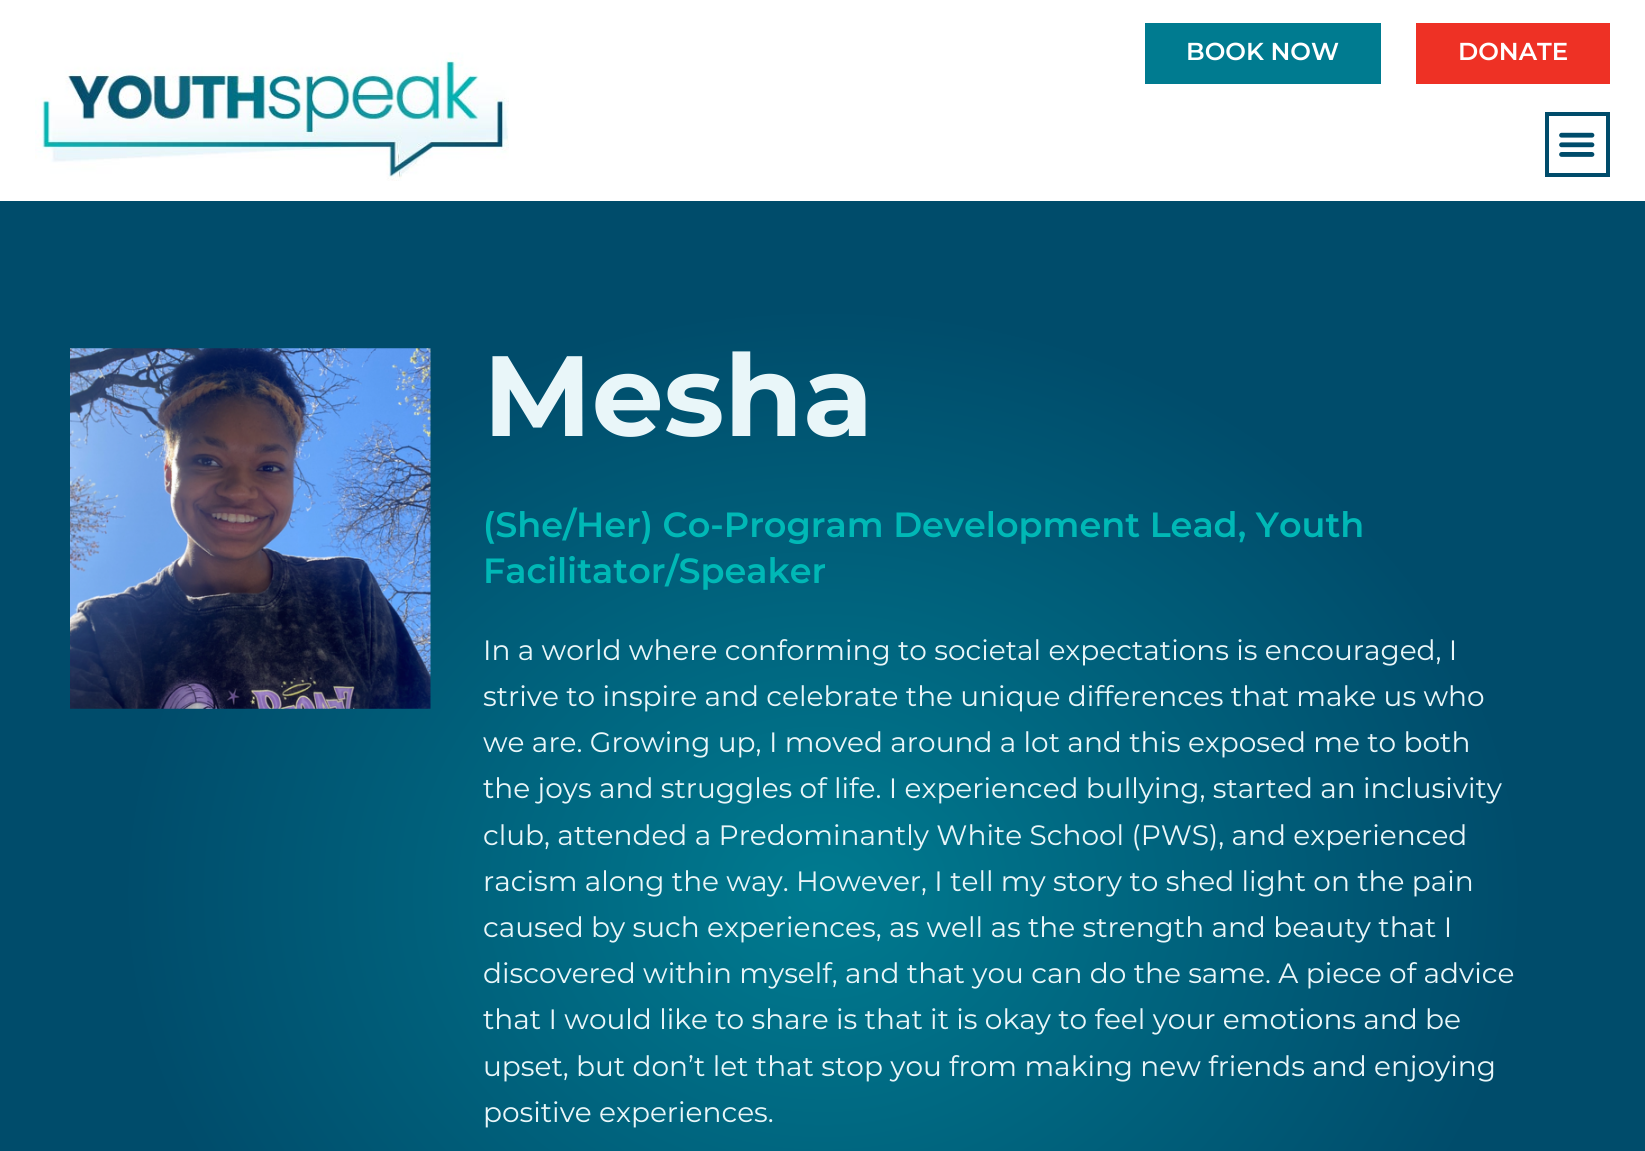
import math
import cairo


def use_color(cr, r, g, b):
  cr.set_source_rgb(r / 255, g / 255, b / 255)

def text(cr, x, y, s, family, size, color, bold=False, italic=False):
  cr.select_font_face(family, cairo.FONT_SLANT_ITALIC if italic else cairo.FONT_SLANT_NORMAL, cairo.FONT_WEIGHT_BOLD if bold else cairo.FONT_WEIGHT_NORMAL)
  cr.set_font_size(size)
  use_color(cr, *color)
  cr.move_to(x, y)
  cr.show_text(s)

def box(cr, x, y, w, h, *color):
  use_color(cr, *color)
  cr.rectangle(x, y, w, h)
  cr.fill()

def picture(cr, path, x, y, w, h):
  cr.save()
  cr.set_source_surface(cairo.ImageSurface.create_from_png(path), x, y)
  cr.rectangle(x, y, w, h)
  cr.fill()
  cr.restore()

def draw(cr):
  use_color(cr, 255, 255, 255)
  cr.paint()
  box(cr, 1145, 23, 236, 61, 0, 123, 144)
  box(cr, 1416, 23, 194, 61, 238, 49, 37)
  picture(cr, "img_01.png", 35, 52, 474, 129)
  cr.rectangle(1547, 114, 61, 61)
  use_color(cr, 0, 76, 107)
  cr.set_line_width(4)
  cr.stroke()
  picture(cr, "img_02.png", 1559, 132, 36, 25)
  gradient = cairo.RadialGradient(0, 0, 0, 0, 0, 1)
  gradient.set_matrix(cairo.Matrix(1 / 1163, 0, 0, 1 / 981, -1 * 823 / 1163, -1 * 895 / 981))
  gradient.add_color_stop_rgba(0, 0, 0.482, 0.565, 1)
  gradient.add_color_stop_rgba(0.6, 0, 0.298, 0.42, 1)
  cr.set_source(gradient)
  cr.rectangle(0, 201, 1645, 950)
  cr.fill()
  picture(cr, "img_03.png", 70, 348, 361, 361)
  text(cr, 1186, 60, "BOOK NOW", "Montserrat SemiBold", 24.5, (255, 255, 255))
  text(cr, 1458, 60, "DONATE", "Montserrat SemiBold", 24.5, (255, 255, 255))
  text(cr, 483, 436, "Mesha", "Montserrat", 114, (233, 246, 249), bold=True)
  text(cr, 483, 537, "(She/Her) Co-Program Development Lead, Youth", "Montserrat SemiBold", 35, (0, 184, 182))
  text(cr, 483, 583, "Facilitator/Speaker", "Montserrat SemiBold", 35, (0, 184, 182))
  text(cr, 483, 660, "In a world where conforming to societal expectations is encouraged, I", "Montserrat", 28, (233, 246, 249))
  text(cr, 483, 706, "strive to inspire and celebrate the unique differences that make us who", "Montserrat", 28, (233, 246, 249))
  text(cr, 483, 752, "we are. Growing up, I moved around a lot and this exposed me to both", "Montserrat", 28, (233, 246, 249))
  text(cr, 483, 798, "the joys and struggles of life. I experienced bullying, started an inclusivity", "Montserrat", 28, (233, 246, 249))
  text(cr, 483, 845, "club, attended a Predominantly White School (PWS), and experienced", "Montserrat", 28, (233, 246, 249))
  text(cr, 483, 891, "racism along the way. However, I tell my story to shed light on the pain", "Montserrat", 28, (233, 246, 249))
  text(cr, 483, 937, "caused by such experiences, as well as the strength and beauty that I", "Montserrat", 28, (233, 246, 249))
  text(cr, 483, 983, "discovered within myself, and that you can do the same. A piece of advice", "Montserrat", 28, (233, 246, 249))
  text(cr, 483, 1029, "that I would like to share is that it is okay to feel your emotions and be", "Montserrat", 28, (233, 246, 249))
  text(cr, 483, 1076, "upset, but don’t let that stop you from making new friends and enjoying", "Montserrat", 28, (233, 246, 249))
  text(cr, 483, 1122, "positive experiences.", "Montserrat", 28, (233, 246, 249))


surface = cairo.ImageSurface(cairo.FORMAT_RGB24, 1645, 1151)
cr = cairo.Context(surface)
options = cairo.FontOptions()
options.set_hint_metrics(cairo.HINT_METRICS_OFF)
options.set_hint_style(cairo.HINT_STYLE_NONE)
cr.set_font_options(options)
cr.set_miter_limit(4)
draw(cr)
surface.write_to_png("out.png")
